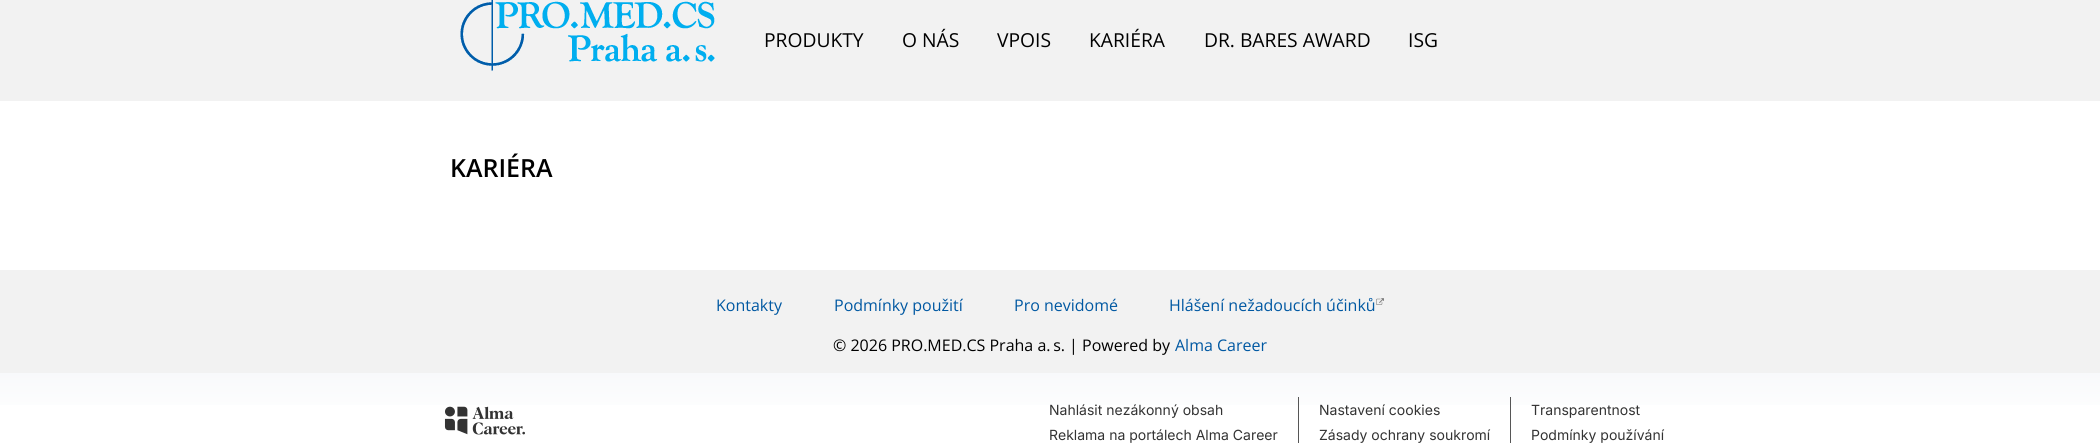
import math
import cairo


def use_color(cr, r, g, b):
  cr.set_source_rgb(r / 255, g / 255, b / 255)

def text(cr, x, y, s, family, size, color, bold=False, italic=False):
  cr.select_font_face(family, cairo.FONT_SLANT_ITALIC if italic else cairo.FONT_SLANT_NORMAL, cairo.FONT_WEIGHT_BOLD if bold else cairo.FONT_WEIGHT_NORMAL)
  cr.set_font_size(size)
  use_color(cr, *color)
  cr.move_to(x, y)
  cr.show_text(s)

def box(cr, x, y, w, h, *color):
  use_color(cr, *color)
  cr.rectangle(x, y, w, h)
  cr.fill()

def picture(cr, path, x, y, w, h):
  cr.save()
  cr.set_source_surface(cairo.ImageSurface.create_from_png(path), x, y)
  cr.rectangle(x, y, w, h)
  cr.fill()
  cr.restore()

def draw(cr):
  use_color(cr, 255, 255, 255)
  cr.paint()
  box(cr, 0, 0, 2100, 101, 242, 242, 242)
  picture(cr, "img_01.png", 460, 0, 255, 71)
  box(cr, 0, 270, 2100, 103, 242, 242, 242)
  picture(cr, "img_02.png", 1376, 298, 8, 7)
  gradient = cairo.LinearGradient(1050, 373, 1050, 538)
  gradient.add_color_stop_rgba(0, 0.973, 0.976, 0.984, 1)
  gradient.add_color_stop_rgba(0.3, 1, 1, 1, 1)
  gradient.add_color_stop_rgba(1, 1, 1, 1, 1)
  cr.set_source(gradient)
  cr.rectangle(0, 373, 2100, 32)
  cr.fill()
  picture(cr, "img_03.png", 444, 406, 81, 29)
  box(cr, 1298, 397, 1, 46, 86, 86, 86)
  box(cr, 1510, 397, 1, 46, 86, 86, 86)
  text(cr, 764, 47, "PRODUKTY", "Open Sans", 19.25, (0, 0, 0))
  text(cr, 902, 47, "O NÁS", "Open Sans", 19.25, (0, 0, 0))
  text(cr, 997, 47, "VPOIS", "Open Sans", 19.25, (0, 0, 0))
  text(cr, 1089, 47, "KARIÉRA", "Open Sans", 19.25, (0, 0, 0))
  text(cr, 1204, 47, "DR. BARES AWARD", "Open Sans", 19.25, (0, 0, 0))
  text(cr, 1408, 47, "ISG", "Open Sans", 19.25, (0, 0, 0))
  text(cr, 450, 177, "KARIÉRA", "Open Sans SemiBold", 25, (0, 0, 0))
  text(cr, 716, 311, "Kontakty", "Open Sans", 16, (0, 88, 162))
  text(cr, 834, 311, "Podmínky použití", "Open Sans", 16, (0, 88, 162))
  text(cr, 1014, 311, "Pro nevidomé", "Open Sans", 16, (0, 88, 162))
  text(cr, 1169, 311, "Hlášení nežadoucích účinků", "Open Sans", 16, (0, 88, 162))
  text(cr, 833, 351, "© 2026 PRO.MED.CS Praha a. s. | Powered by", "Open Sans", 16, (0, 0, 0))
  text(cr, 1175, 351, "Alma Career", "Open Sans", 16, (0, 88, 162))
  text(cr, 1049, 415, "Nahlásit nezákonný obsah", "Inter", 14, (51, 51, 51))
  text(cr, 1319, 415, "Nastavení cookies", "Inter", 14, (51, 51, 51))
  text(cr, 1531, 415, "Transparentnost", "Inter", 14, (51, 51, 51))
  text(cr, 1049, 440, "Reklama na portálech Alma Career", "Inter", 14, (51, 51, 51))
  text(cr, 1319, 440, "Zásady ochrany soukromí", "Inter", 14, (51, 51, 51))
  text(cr, 1531, 440, "Podmínky používání", "Inter", 14, (51, 51, 51))


surface = cairo.ImageSurface(cairo.FORMAT_RGB24, 2100, 443)
cr = cairo.Context(surface)
options = cairo.FontOptions()
options.set_hint_metrics(cairo.HINT_METRICS_OFF)
options.set_hint_style(cairo.HINT_STYLE_NONE)
cr.set_font_options(options)
cr.set_miter_limit(4)
draw(cr)
surface.write_to_png("out.png")
